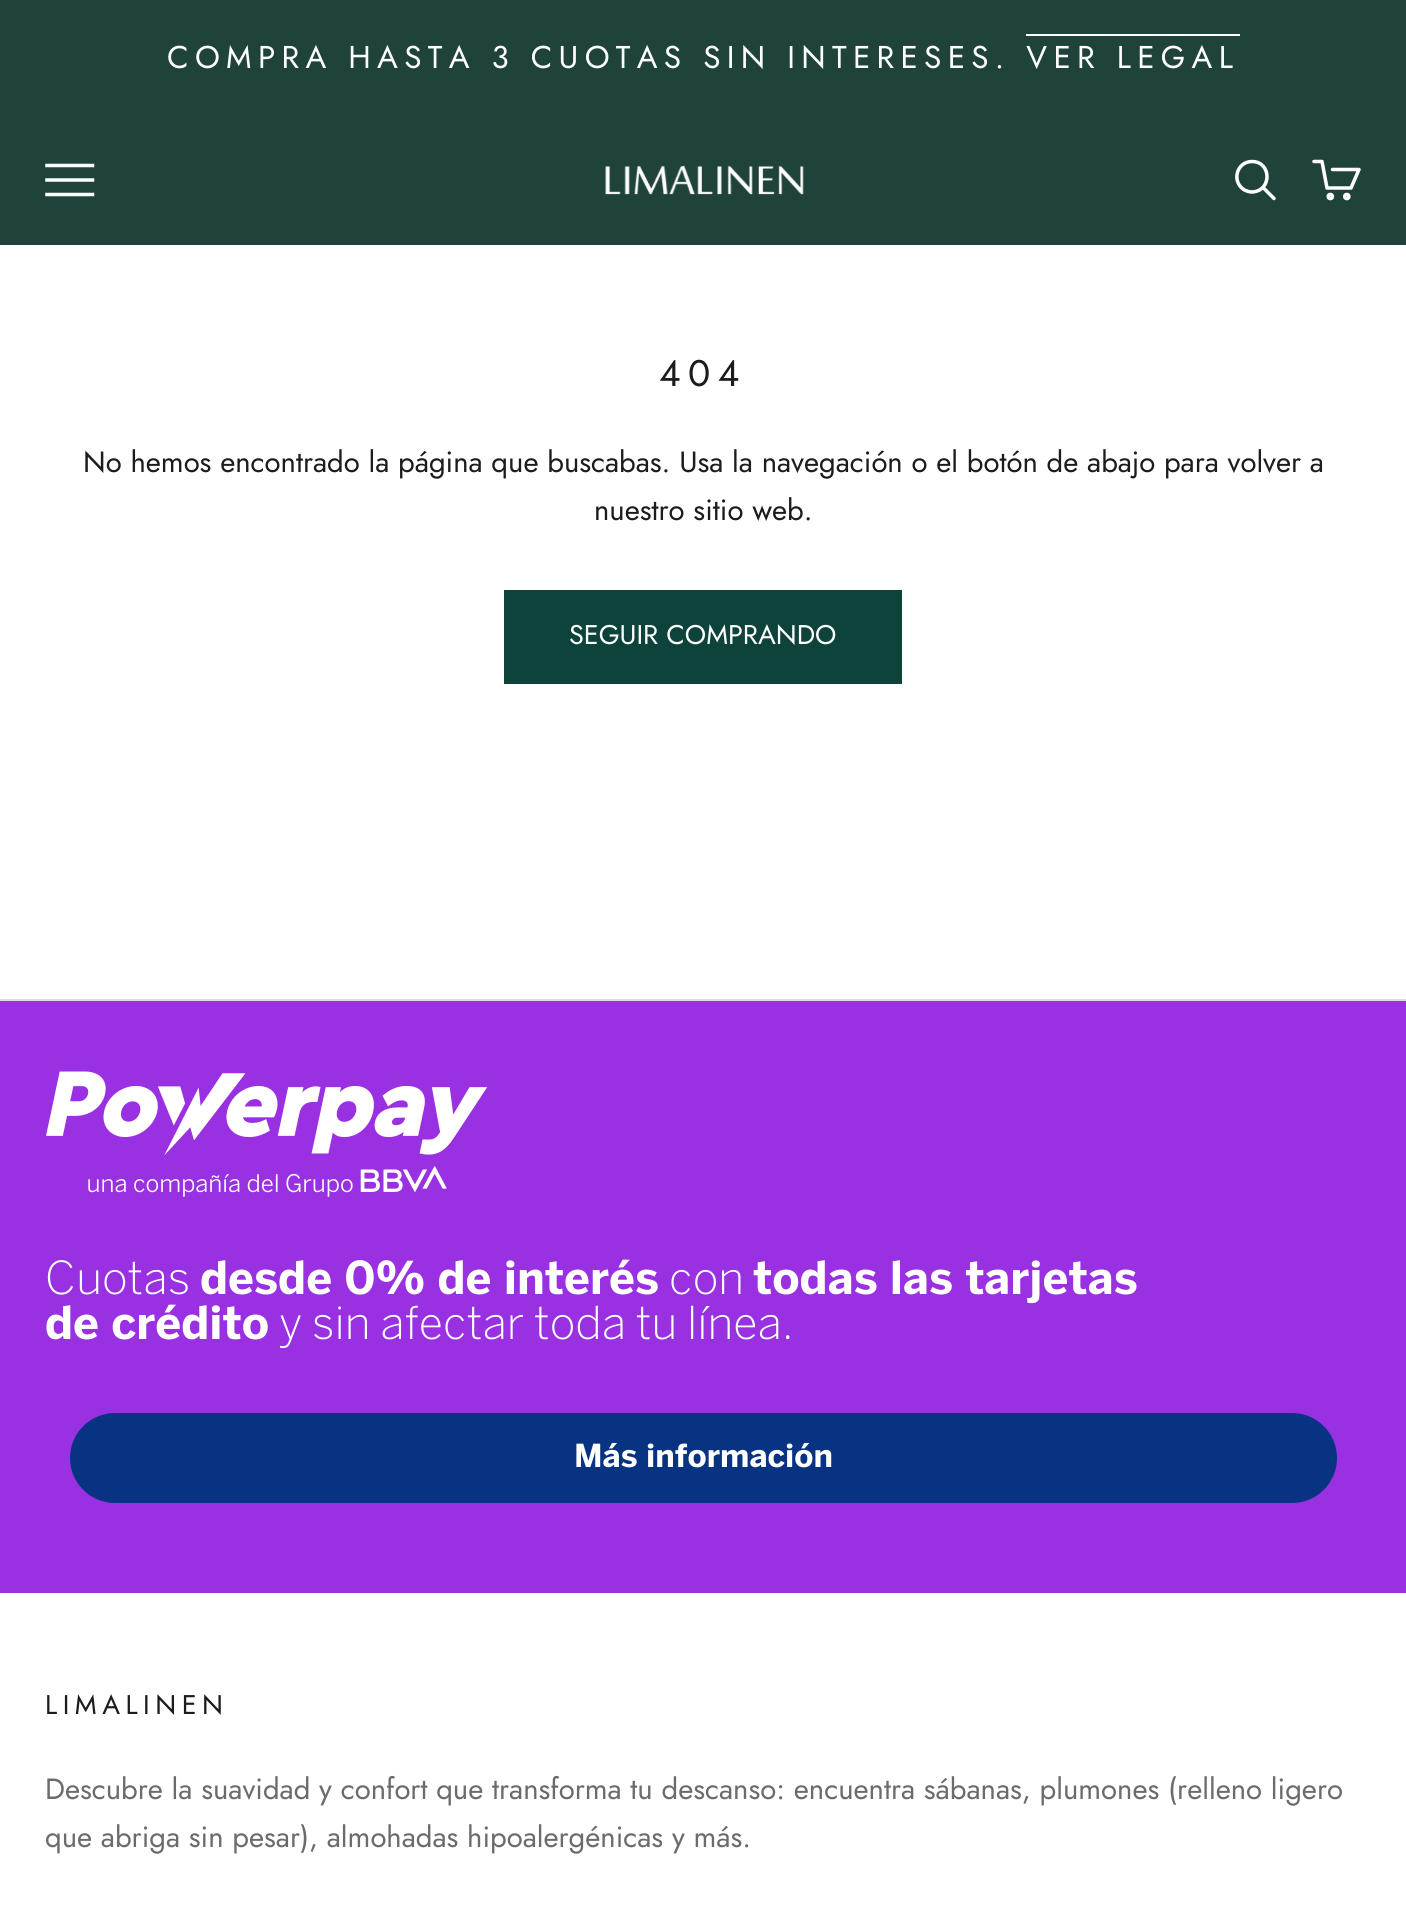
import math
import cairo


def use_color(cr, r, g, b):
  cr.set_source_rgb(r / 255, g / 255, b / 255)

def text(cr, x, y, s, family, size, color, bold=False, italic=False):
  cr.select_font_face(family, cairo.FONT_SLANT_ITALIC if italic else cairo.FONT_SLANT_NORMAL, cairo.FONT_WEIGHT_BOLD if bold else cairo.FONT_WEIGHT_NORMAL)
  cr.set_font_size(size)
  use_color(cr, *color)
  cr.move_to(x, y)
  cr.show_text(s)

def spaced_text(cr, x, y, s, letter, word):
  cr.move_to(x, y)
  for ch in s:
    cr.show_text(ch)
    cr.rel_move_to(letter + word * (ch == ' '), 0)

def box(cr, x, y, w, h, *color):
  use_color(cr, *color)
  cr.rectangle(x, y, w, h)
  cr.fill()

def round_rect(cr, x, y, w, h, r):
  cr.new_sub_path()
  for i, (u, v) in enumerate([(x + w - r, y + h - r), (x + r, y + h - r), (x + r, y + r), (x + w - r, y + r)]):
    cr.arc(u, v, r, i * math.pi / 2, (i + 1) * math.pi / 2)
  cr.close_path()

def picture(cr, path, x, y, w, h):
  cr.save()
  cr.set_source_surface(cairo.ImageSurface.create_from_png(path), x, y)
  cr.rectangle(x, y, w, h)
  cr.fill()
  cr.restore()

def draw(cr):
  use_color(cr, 255, 255, 255)
  cr.paint()
  box(cr, 0, 0, 1406, 245, 31, 67, 59)
  cr.new_path()
  cr.move_to(47, 194.5)
  cr.line_to(92.5, 194.5)
  cr.move_to(47, 180)
  cr.line_to(92.5, 180)
  cr.move_to(47, 165.5)
  cr.line_to(92.5, 165.5)
  use_color(cr, 255, 255, 255)
  cr.set_line_width(3.5)
  cr.set_line_cap(cairo.LINE_CAP_SQUARE)
  cr.stroke()
  picture(cr, "img_01.png", 605, 165, 199, 30)
  cr.new_path()
  cr.move_to(1252, 161.5)
  cr.curve_to(1236.5, 161.5, 1231, 182, 1244.5, 190)
  cr.curve_to(1246.5, 191, 1249.5, 192, 1252, 192)
  cr.curve_to(1272.5, 191, 1271.5, 161.5, 1252, 161.5)
  cr.close_path()
  cr.set_line_cap(cairo.LINE_CAP_BUTT)
  cr.stroke()
  cr.new_path()
  cr.move_to(1263.5, 188)
  cr.line_to(1274, 198.5)
  cr.set_line_cap(cairo.LINE_CAP_ROUND)
  cr.stroke()
  cr.new_path()
  cr.move_to(1332.5, 169.5)
  cr.line_to(1359, 169.5)
  cr.line_to(1351, 188)
  cr.line_to(1327, 188)
  cr.line_to(1322, 161.5)
  cr.line_to(1314, 161.5)
  cr.set_line_join(cairo.LINE_JOIN_ROUND)
  cr.stroke()
  cr.arc(1330.3, 196.5, 2.1, 0, 2 * math.pi)
  cr.set_line_cap(cairo.LINE_CAP_BUTT)
  cr.set_line_join(cairo.LINE_JOIN_MITER)
  cr.stroke()
  cr.arc(1346.8, 196.5, 2.1, 0, 2 * math.pi)
  cr.stroke()
  box(cr, 1026, 34, 214, 2, 255, 255, 255)
  use_color(cr, 13, 67, 59)
  cr.rectangle(505, 591, 396, 92)
  cr.fill_preserve()
  cr.set_line_width(2)
  cr.stroke()
  box(cr, 0, 999, 1406, 2, 221, 221, 221)
  box(cr, 0, 1001, 1406, 592, 153, 48, 226)
  picture(cr, "img_02.png", 46, 1071, 442, 126)
  use_color(cr, 7, 51, 130)
  round_rect(cr, 70, 1413, 1267, 90, 45)
  cr.fill()
  cr.select_font_face("Jost")
  cr.set_font_size(31.5)
  use_color(cr, 255, 255, 255)
  spaced_text(cr, 167, 68, "COMPRA HASTA 3 CUOTAS SIN INTERESES. VER LEGAL", 6.3, 0)
  cr.set_font_size(37)
  use_color(cr, 28, 28, 28)
  spaced_text(cr, 659, 386, "404", 7.5, 0)
  text(cr, 83, 472, "No hemos encontrado la página que buscabas. Usa la navegación o el botón de abajo para volver a", "Jost", 29.25, (28, 28, 28))
  text(cr, 594, 520, "nuestro sitio web.", "Jost", 29.25, (28, 28, 28))
  text(cr, 569, 644, "SEGUIR COMPRANDO", "Jost", 27, (255, 255, 255))
  text(cr, 45, 1294, "Cuotas", "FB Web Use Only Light", 45, (255, 255, 255))
  text(cr, 200, 1294, "desde 0% de interés", "FB Web Use Only", 45, (255, 255, 255), bold=True)
  text(cr, 669, 1294, "con", "FB Web Use Only Light", 45, (255, 255, 255))
  text(cr, 753, 1294, "todas las tarjetas", "FB Web Use Only", 45, (255, 255, 255), bold=True)
  text(cr, 45, 1339, "de crédito", "FB Web Use Only", 45, (255, 255, 255), bold=True)
  text(cr, 279, 1339, "y sin afectar toda tu línea.", "FB Web Use Only Light", 45, (255, 255, 255))
  text(cr, 574, 1467, "Más información", "FB Web Use Only", 31.5, (255, 255, 255), bold=True)
  cr.select_font_face("Jost")
  cr.set_font_size(27)
  use_color(cr, 28, 28, 28)
  spaced_text(cr, 45, 1714, "LIMALINEN", 5.5, 0)
  text(cr, 45, 1799, "Descubre la suavidad y confort que transforma tu descanso: encuentra sábanas, plumones (relleno ligero", "Jost", 29.25, (107, 107, 107))
  text(cr, 45, 1847, "que abriga sin pesar), almohadas hipoalergénicas y más.", "Jost", 29.25, (107, 107, 107))


surface = cairo.ImageSurface(cairo.FORMAT_RGB24, 1406, 1908)
cr = cairo.Context(surface)
options = cairo.FontOptions()
options.set_hint_metrics(cairo.HINT_METRICS_OFF)
options.set_hint_style(cairo.HINT_STYLE_NONE)
cr.set_font_options(options)
cr.set_miter_limit(4)
draw(cr)
surface.write_to_png("out.png")
